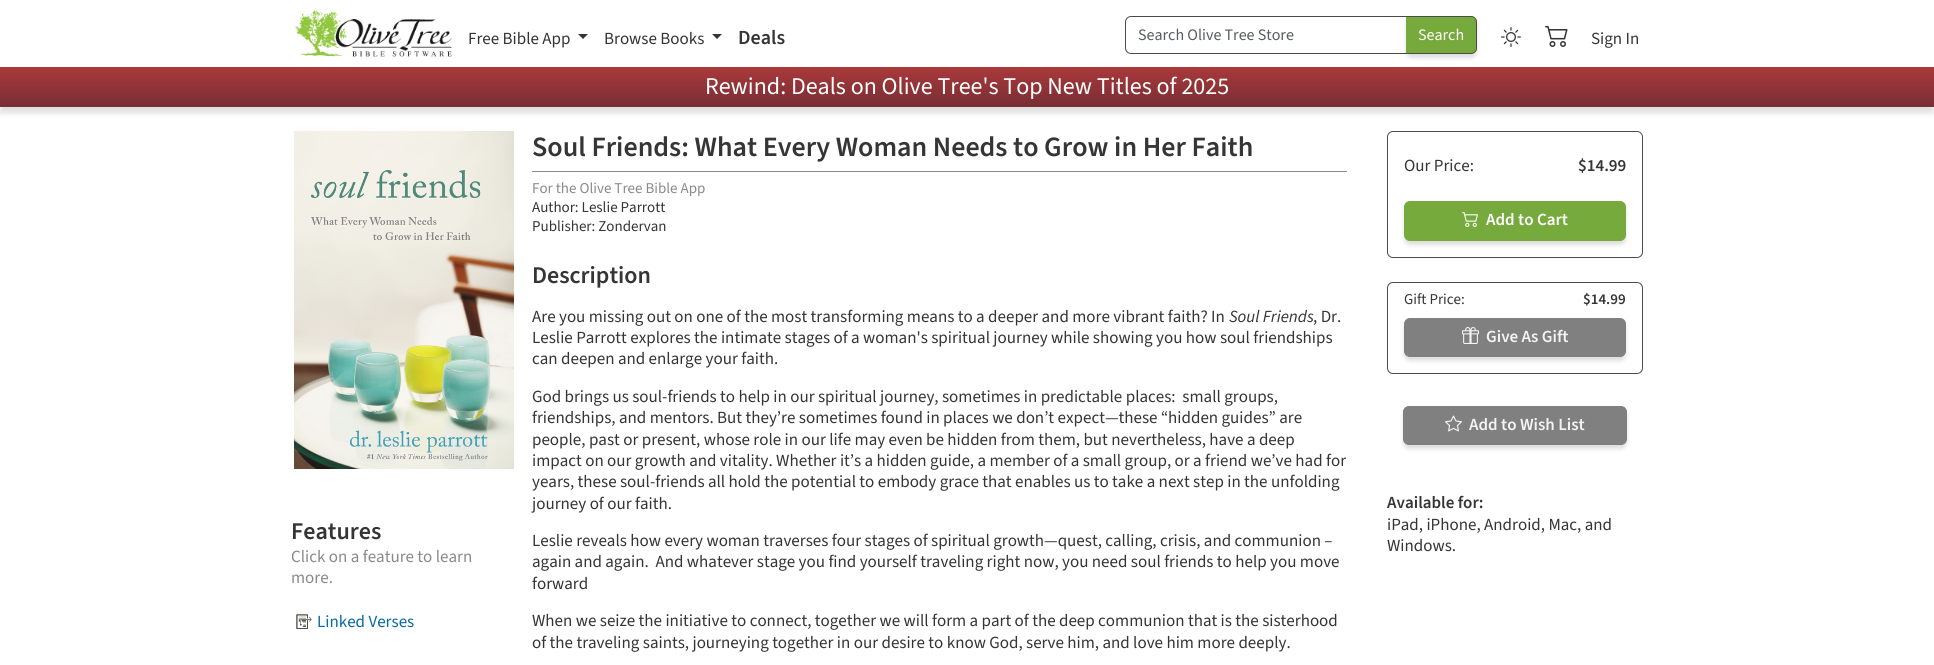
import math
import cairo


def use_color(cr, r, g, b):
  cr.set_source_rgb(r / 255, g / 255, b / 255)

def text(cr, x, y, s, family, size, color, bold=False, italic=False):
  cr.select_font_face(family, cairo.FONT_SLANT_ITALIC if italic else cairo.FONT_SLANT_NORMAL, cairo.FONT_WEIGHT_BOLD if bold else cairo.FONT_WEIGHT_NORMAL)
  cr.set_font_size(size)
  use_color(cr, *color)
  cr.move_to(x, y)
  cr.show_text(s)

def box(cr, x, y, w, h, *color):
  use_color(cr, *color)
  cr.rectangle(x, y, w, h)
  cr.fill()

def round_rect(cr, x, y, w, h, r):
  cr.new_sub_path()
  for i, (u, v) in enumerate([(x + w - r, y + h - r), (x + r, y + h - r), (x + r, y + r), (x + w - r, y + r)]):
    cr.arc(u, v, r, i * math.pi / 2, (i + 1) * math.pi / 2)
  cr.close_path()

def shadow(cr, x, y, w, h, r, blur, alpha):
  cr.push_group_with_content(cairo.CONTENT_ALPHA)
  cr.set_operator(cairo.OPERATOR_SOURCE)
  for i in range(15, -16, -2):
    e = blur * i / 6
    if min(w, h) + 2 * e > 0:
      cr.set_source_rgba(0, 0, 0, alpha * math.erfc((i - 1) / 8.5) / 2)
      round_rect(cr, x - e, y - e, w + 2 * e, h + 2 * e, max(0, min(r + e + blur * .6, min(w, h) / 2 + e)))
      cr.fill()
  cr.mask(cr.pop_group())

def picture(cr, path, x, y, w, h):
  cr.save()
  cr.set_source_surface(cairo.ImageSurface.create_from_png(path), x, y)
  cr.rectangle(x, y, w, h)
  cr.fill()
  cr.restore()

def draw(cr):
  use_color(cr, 255, 255, 255)
  cr.paint()
  picture(cr, "img_01.png", 295, 9, 157, 48)
  use_color(cr, 53, 53, 53)
  cr.new_path()
  cr.move_to(578, 34)
  cr.line_to(588, 34)
  cr.line_to(583, 39)
  cr.close_path()
  cr.fill()
  cr.new_path()
  cr.move_to(712, 34)
  cr.line_to(722, 34)
  cr.line_to(717, 39)
  cr.close_path()
  cr.fill()
  cr.new_path()
  cr.move_to(1131, 16.5)
  cr.line_to(1406.5, 16.5)
  cr.line_to(1406.5, 53.5)
  cr.line_to(1131, 53.5)
  cr.curve_to(1128, 53.5, 1125.5, 51, 1125.5, 48)
  cr.line_to(1125.5, 22)
  cr.curve_to(1125.5, 19, 1128, 16.5, 1131, 16.5)
  cr.close_path()
  use_color(cr, 75, 75, 75)
  cr.set_line_width(1)
  cr.stroke()
  use_color(cr, 0, 0, 0)
  shadow(cr, 1406, 20, 71, 38, 6, 2, 0.13)
  use_color(cr, 119, 170, 60)
  cr.new_path()
  cr.move_to(1406, 16)
  cr.line_to(1471, 16)
  cr.curve_to(1474.5, 16, 1477, 18.5, 1477, 22)
  cr.line_to(1477, 48)
  cr.curve_to(1477, 51.5, 1474.5, 54, 1471, 54)
  cr.line_to(1406, 54)
  cr.close_path()
  cr.fill()
  use_color(cr, 75, 75, 75)
  cr.set_fill_rule(cairo.FILL_RULE_EVEN_ODD)
  cr.new_path()
  cr.move_to(1406, 16)
  cr.line_to(1471, 16)
  cr.curve_to(1474, 16, 1477, 19, 1477, 22)
  cr.line_to(1477, 48)
  cr.curve_to(1477, 51, 1474, 54, 1471, 54)
  cr.line_to(1406, 54)
  cr.close_path()
  cr.move_to(1406, 17)
  cr.line_to(1471, 17)
  cr.curve_to(1474, 17, 1476, 19, 1476, 22)
  cr.line_to(1476, 48)
  cr.curve_to(1476, 51, 1474, 53, 1471, 53)
  cr.line_to(1406, 53)
  cr.close_path()
  cr.fill()
  picture(cr, "img_02.png", 1501, 27, 20, 20)
  picture(cr, "img_03.png", 1545, 25, 23, 22)
  use_color(cr, 0, 0, 0)
  shadow(cr, 0, 73, 1934, 40, 0, 3, 0.13)
  gradient = cairo.LinearGradient(967, 67, 967, 107)
  gradient.add_color_stop_rgba(0, 0.667, 0.224, 0.231, 1)
  gradient.add_color_stop_rgba(1, 0.467, 0.18, 0.208, 1)
  cr.set_source(gradient)
  cr.rectangle(0, 67, 1934, 40)
  cr.fill()
  box(cr, 532, 171, 815, 1, 138, 138, 138)
  round_rect(cr, 1387.5, 131.5, 255, 126, 5.5)
  use_color(cr, 75, 75, 75)
  cr.stroke()
  use_color(cr, 0, 0, 0)
  shadow(cr, 1404, 205, 222, 40, 6, 2, 0.13)
  use_color(cr, 119, 170, 60)
  round_rect(cr, 1404.5, 201.5, 221, 39, 5.5)
  cr.fill_preserve()
  cr.stroke()
  picture(cr, "img_04.png", 1462, 212, 16, 15)
  round_rect(cr, 1387.5, 282.5, 255, 91, 5.5)
  use_color(cr, 75, 75, 75)
  cr.stroke()
  use_color(cr, 0, 0, 0)
  shadow(cr, 1404, 322, 222, 39, 6, 2, 0.13)
  use_color(cr, 128, 128, 128)
  round_rect(cr, 1404.5, 318.5, 221, 38, 5.5)
  cr.fill_preserve()
  cr.stroke()
  picture(cr, "img_05.png", 1462, 327, 17, 17)
  use_color(cr, 0, 0, 0)
  shadow(cr, 1403, 410, 224, 39, 6, 2, 0.13)
  use_color(cr, 128, 128, 128)
  round_rect(cr, 1403.5, 406.5, 223, 38, 5.5)
  cr.fill_preserve()
  cr.stroke()
  picture(cr, "img_06.png", 1445, 415, 17, 17)
  picture(cr, "img_07.png", 294, 131, 220, 338)
  picture(cr, "img_08.png", 296, 614, 16, 15)
  text(cr, 468, 44, "Free Bible App", "Source Sans 3", 17, (53, 53, 53))
  text(cr, 604, 44, "Browse Books", "Source Sans 3", 17, (53, 53, 53))
  text(cr, 738, 44, "Deals", "Source Sans 3 SemiBold", 20, (53, 53, 53))
  text(cr, 1138, 40, "Search Olive Tree Store", "Source Sans 3", 16, (89, 92, 95))
  text(cr, 1418, 40, "Search", "Source Sans 3", 16, (255, 255, 255))
  text(cr, 1591, 44, "Sign In", "Source Sans 3", 17, (53, 53, 53))
  text(cr, 705, 94, "Rewind: Deals on Olive Tree's Top New Titles of 2025", "Source Sans 3", 24, (255, 255, 255))
  text(cr, 532, 156, "Soul Friends: What Every Woman Needs to Grow in Her Faith", "Source Sans 3 SemiBold", 28, (53, 53, 53))
  text(cr, 532, 193, "For the Olive Tree Bible App", "Source Sans 3", 15, (138, 138, 138))
  text(cr, 532, 212, "Author: Leslie Parrott", "Source Sans 3", 15, (53, 53, 53))
  text(cr, 532, 231, "Publisher: Zondervan", "Source Sans 3", 15, (53, 53, 53))
  text(cr, 532, 283, "Description", "Source Sans 3 SemiBold", 24, (53, 53, 53))
  text(cr, 532, 322, "Are you missing out on one of the most transforming means to a deeper and more vibrant faith? In", "Source Sans 3", 17, (53, 53, 53))
  text(cr, 1229, 322, "Soul Friends", "Source Sans 3", 17, (53, 53, 53), italic=True)
  text(cr, 1313, 322, ", Dr.", "Source Sans 3", 17, (53, 53, 53))
  text(cr, 532, 343, "Leslie Parrott explores the intimate stages of a woman's spiritual journey while showing you how soul friendships", "Source Sans 3", 17, (53, 53, 53))
  text(cr, 532, 364, "can deepen and enlarge your faith.", "Source Sans 3", 17, (53, 53, 53))
  text(cr, 532, 402, "God brings us soul-friends to help in our spiritual journey, sometimes in predictable places:  small groups,", "Source Sans 3", 17, (53, 53, 53))
  text(cr, 532, 423, "friendships, and mentors. But they’re sometimes found in places we don’t expect—these “hidden guides” are", "Source Sans 3", 17, (53, 53, 53))
  text(cr, 532, 445, "people, past or present, whose role in our life may even be hidden from them, but nevertheless, have a deep", "Source Sans 3", 17, (53, 53, 53))
  text(cr, 532, 466, "impact on our growth and vitality. Whether it’s a hidden guide, a member of a small group, or a friend we’ve had for", "Source Sans 3", 17, (53, 53, 53))
  text(cr, 532, 487, "years, these soul-friends all hold the potential to embody grace that enables us to take a next step in the unfolding", "Source Sans 3", 17, (53, 53, 53))
  text(cr, 532, 509, "journey of our faith.", "Source Sans 3", 17, (53, 53, 53))
  text(cr, 532, 546, "Leslie reveals how every woman traverses four stages of spiritual growth—quest, calling, crisis, and communion –", "Source Sans 3", 17, (53, 53, 53))
  text(cr, 532, 567, "again and again.  And whatever stage you find yourself traveling right now, you need soul friends to help you move", "Source Sans 3", 17, (53, 53, 53))
  text(cr, 532, 589, "forward", "Source Sans 3", 17, (53, 53, 53))
  text(cr, 532, 626, "When we seize the initiative to connect, together we will form a part of the deep communion that is the sisterhood", "Source Sans 3", 17, (53, 53, 53))
  text(cr, 532, 648, "of the traveling saints, journeying together in our desire to know God, serve him, and love him more deeply.", "Source Sans 3", 17, (53, 53, 53))
  text(cr, 1404, 171, "Our Price:", "Source Sans 3", 17, (53, 53, 53))
  text(cr, 1578, 171, "$14.99", "Source Sans 3 SemiBold", 17, (53, 53, 53))
  text(cr, 1486, 225, "Add to Cart", "Source Sans 3 SemiBold", 17, (255, 255, 255))
  text(cr, 1404, 304, "Gift Price:", "Source Sans 3", 15, (53, 53, 53))
  text(cr, 1583, 304, "$14.99", "Source Sans 3 SemiBold", 15, (53, 53, 53))
  text(cr, 1486, 342, "Give As Gift", "Source Sans 3 SemiBold", 17, (243, 243, 243))
  text(cr, 1469, 430, "Add to Wish List", "Source Sans 3 SemiBold", 17, (243, 243, 243))
  text(cr, 1387, 508, "Available for:", "Source Sans 3 SemiBold", 17, (53, 53, 53))
  text(cr, 1387, 530, "iPad, iPhone, Android, Mac, and", "Source Sans 3", 17, (53, 53, 53))
  text(cr, 1387, 551, "Windows.", "Source Sans 3", 17, (53, 53, 53))
  text(cr, 291, 539, "Features", "Source Sans 3 SemiBold", 24, (53, 53, 53))
  text(cr, 291, 562, "Click on a feature to learn", "Source Sans 3", 17, (138, 138, 138))
  text(cr, 291, 583, "more.", "Source Sans 3", 17, (138, 138, 138))
  text(cr, 317, 627, "Linked Verses", "Source Sans 3", 17, (7, 105, 163))


surface = cairo.ImageSurface(cairo.FORMAT_RGB24, 1934, 665)
cr = cairo.Context(surface)
options = cairo.FontOptions()
options.set_hint_metrics(cairo.HINT_METRICS_OFF)
options.set_hint_style(cairo.HINT_STYLE_NONE)
cr.set_font_options(options)
cr.set_miter_limit(4)
draw(cr)
surface.write_to_png("out.png")
